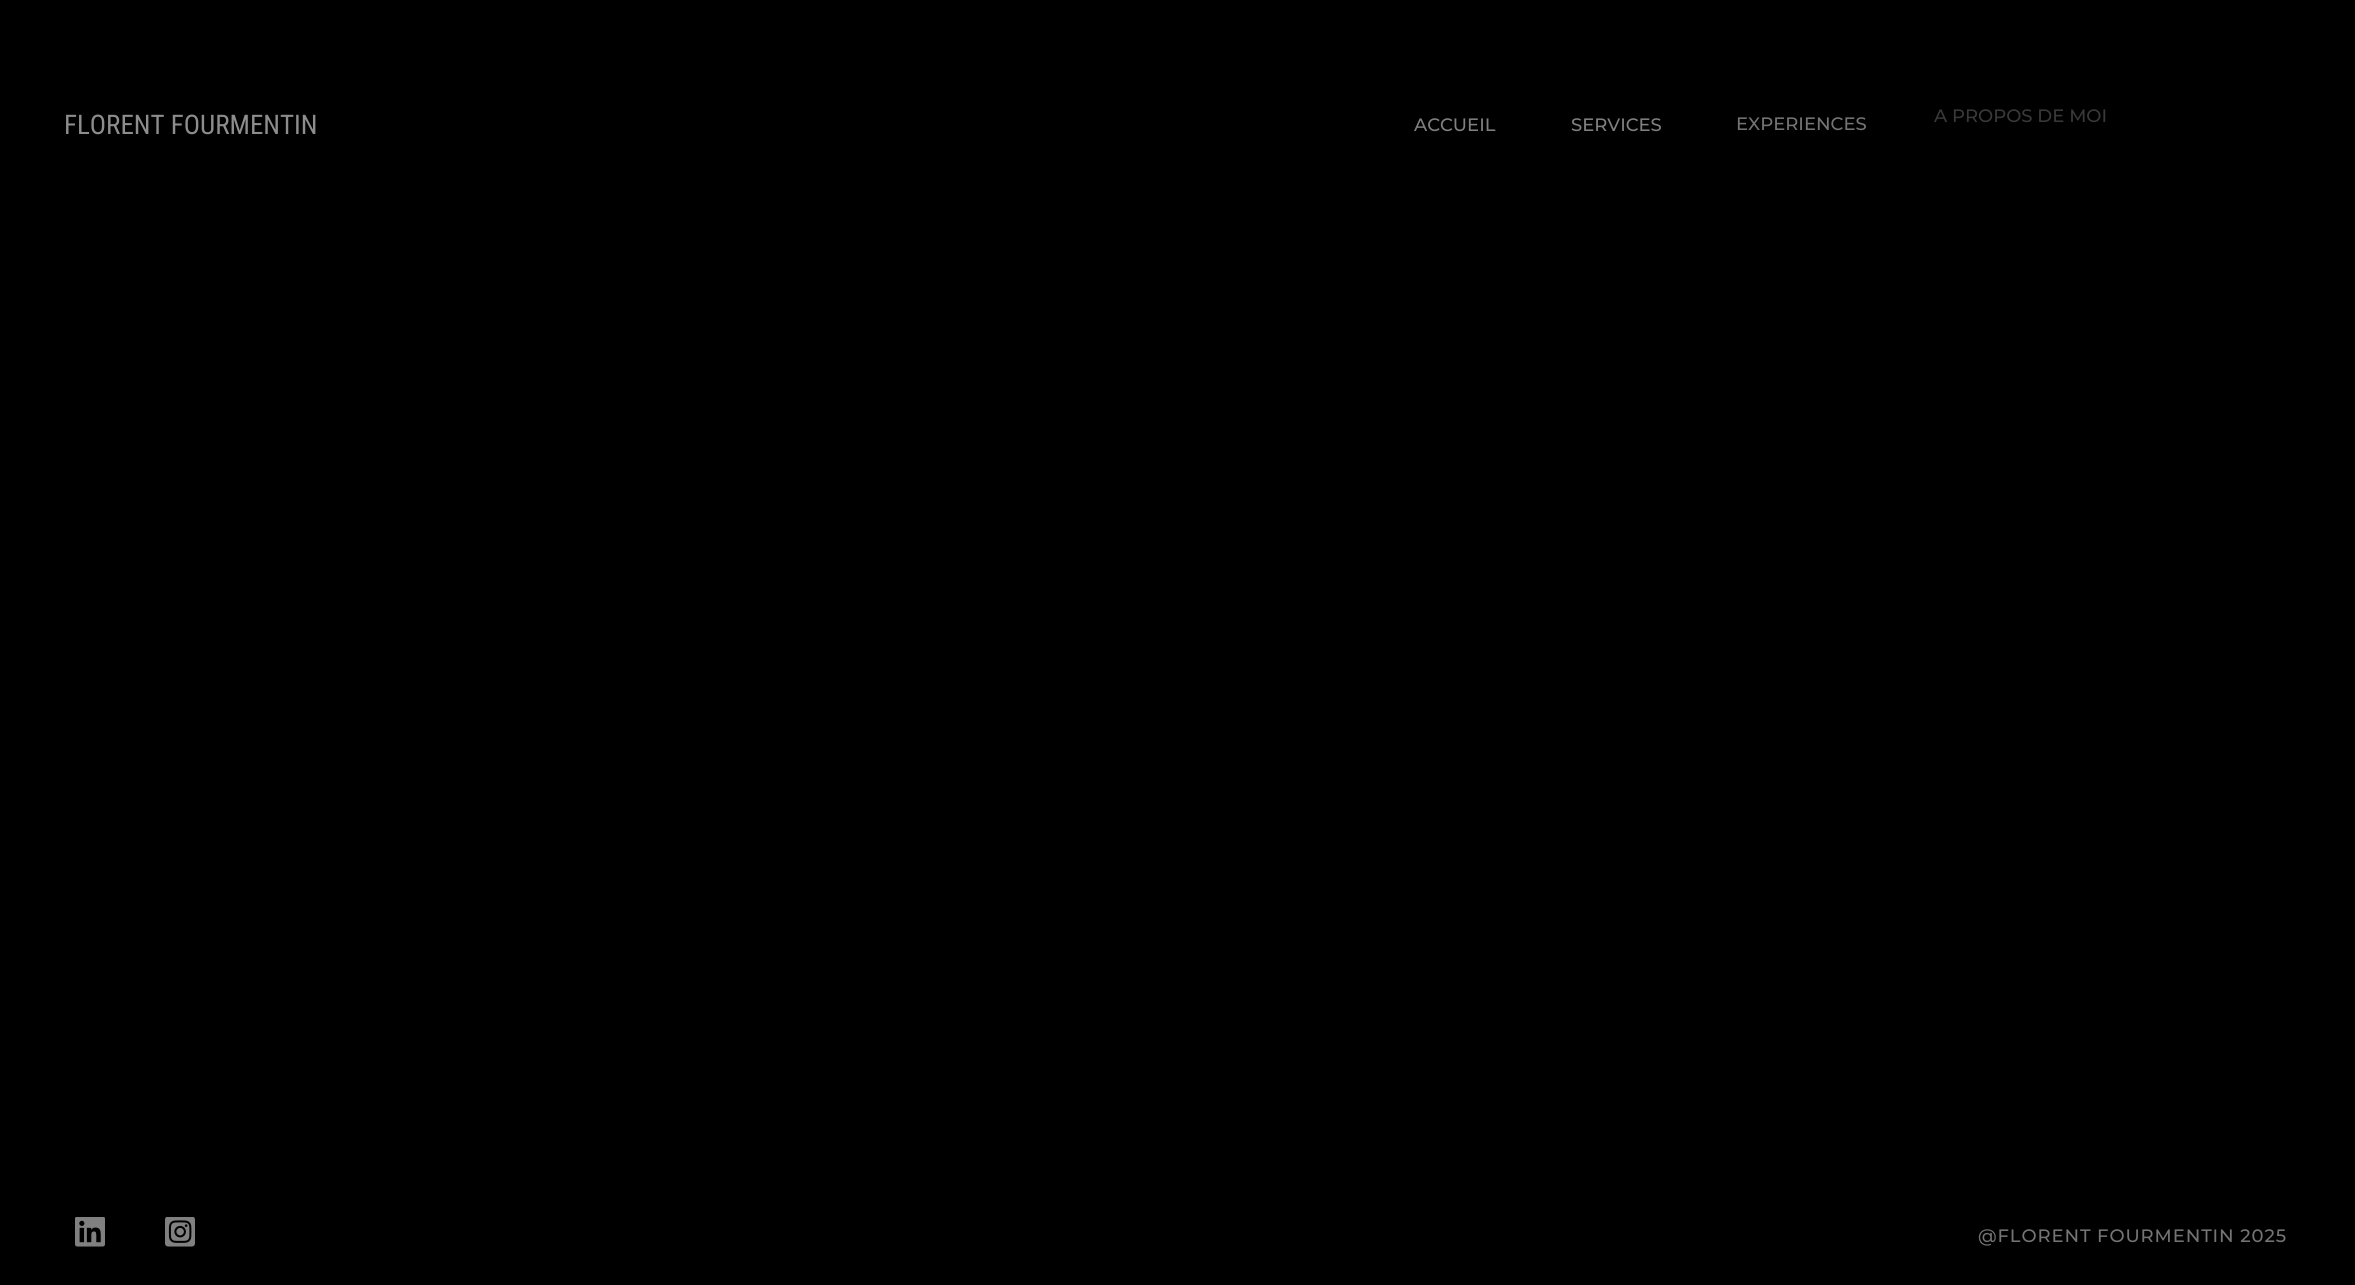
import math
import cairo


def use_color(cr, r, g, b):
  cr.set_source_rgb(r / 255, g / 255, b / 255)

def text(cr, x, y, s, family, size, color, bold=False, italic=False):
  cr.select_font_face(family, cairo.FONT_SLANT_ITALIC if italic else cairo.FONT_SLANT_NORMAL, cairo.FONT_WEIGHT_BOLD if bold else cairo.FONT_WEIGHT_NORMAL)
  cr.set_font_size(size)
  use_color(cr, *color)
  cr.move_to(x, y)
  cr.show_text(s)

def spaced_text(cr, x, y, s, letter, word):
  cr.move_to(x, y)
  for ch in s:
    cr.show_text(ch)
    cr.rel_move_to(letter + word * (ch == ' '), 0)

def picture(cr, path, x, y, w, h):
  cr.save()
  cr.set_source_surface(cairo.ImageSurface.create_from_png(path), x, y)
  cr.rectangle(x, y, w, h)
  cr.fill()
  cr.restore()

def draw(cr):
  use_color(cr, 0, 0, 0)
  cr.paint()
  picture(cr, "img_01.png", 75, 1217, 30, 30)
  picture(cr, "img_02.png", 165, 1217, 30, 30)
  text(cr, 64, 134, "FLORENT FOURMENTIN", "Roboto Condensed", 27, (141, 141, 141))
  text(cr, 1414, 131, "ACCUEIL", "Montserrat Medium", 18, (128, 128, 128))
  text(cr, 1571, 131, "SERVICES", "Montserrat Medium", 18, (128, 128, 128))
  text(cr, 1736, 130, "EXPERIENCES", "Montserrat Medium", 18, (116, 116, 116))
  text(cr, 1934, 122, "A PROPOS DE MOI", "Montserrat Medium", 18, (57, 57, 57))
  use_color(cr, 116, 116, 116)
  spaced_text(cr, 1978, 1242, "@FLORENT FOURMENTIN 2025", 0.9, 0)


surface = cairo.ImageSurface(cairo.FORMAT_RGB24, 2355, 1285)
cr = cairo.Context(surface)
options = cairo.FontOptions()
options.set_hint_metrics(cairo.HINT_METRICS_OFF)
options.set_hint_style(cairo.HINT_STYLE_NONE)
cr.set_font_options(options)
cr.set_miter_limit(4)
draw(cr)
surface.write_to_png("out.png")
